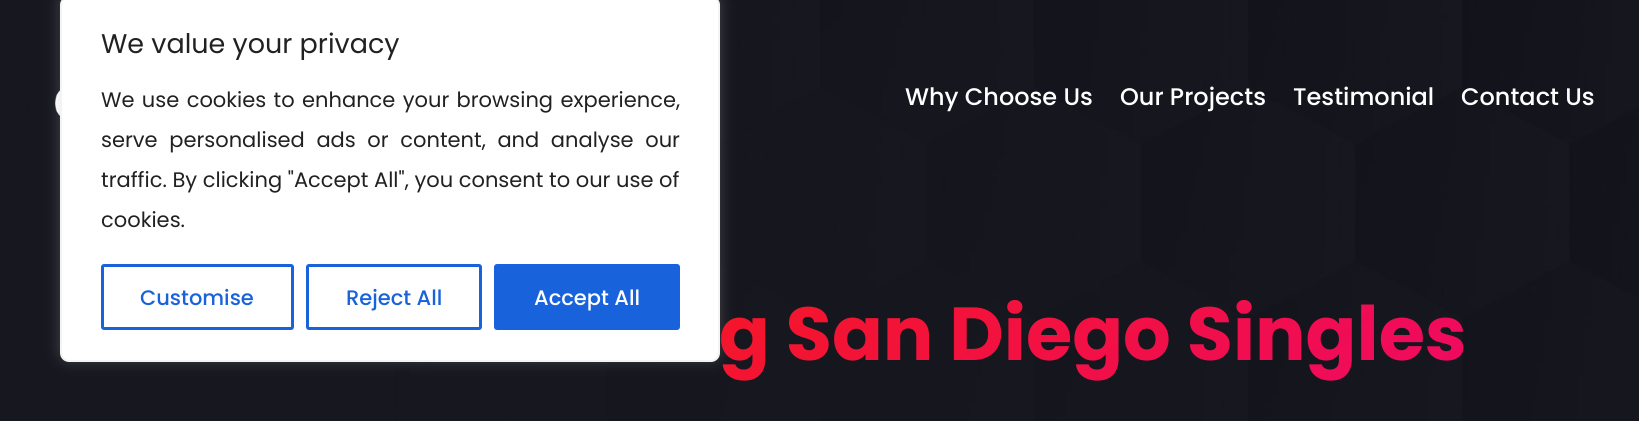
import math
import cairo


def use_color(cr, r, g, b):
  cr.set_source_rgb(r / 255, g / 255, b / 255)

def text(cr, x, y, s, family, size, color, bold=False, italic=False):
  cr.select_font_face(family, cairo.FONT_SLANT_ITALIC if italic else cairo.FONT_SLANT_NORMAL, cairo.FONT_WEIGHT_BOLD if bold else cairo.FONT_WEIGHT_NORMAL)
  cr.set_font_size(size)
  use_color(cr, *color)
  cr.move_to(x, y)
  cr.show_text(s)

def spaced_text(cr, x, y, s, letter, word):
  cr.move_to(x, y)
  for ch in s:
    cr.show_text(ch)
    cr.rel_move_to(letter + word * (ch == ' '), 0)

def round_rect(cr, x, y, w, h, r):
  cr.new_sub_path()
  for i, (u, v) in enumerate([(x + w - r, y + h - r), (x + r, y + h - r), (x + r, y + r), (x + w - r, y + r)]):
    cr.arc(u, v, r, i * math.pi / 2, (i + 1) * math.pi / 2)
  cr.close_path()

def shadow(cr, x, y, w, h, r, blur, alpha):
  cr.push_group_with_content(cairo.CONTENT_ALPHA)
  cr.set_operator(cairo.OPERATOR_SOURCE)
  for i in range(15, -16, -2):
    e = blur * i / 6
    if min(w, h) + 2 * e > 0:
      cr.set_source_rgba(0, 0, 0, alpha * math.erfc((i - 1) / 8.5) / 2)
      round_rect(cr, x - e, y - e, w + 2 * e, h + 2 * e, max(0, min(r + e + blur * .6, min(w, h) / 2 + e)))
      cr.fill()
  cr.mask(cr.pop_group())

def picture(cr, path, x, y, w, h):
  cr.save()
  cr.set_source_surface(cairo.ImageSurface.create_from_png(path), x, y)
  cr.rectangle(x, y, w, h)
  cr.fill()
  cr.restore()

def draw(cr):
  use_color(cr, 255, 255, 255)
  cr.paint()
  picture(cr, "img_02.png", 0, 0, 1639, 421)
  picture(cr, "img_01.png", 55, 90, 5, 26)
  use_color(cr, 172, 171, 171)
  shadow(cr, 60, -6, 660, 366, 9, 7.5, 0.3)
  use_color(cr, 255, 255, 255)
  round_rect(cr, 61, -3, 658, 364, 8)
  cr.fill_preserve()
  use_color(cr, 244, 244, 244)
  cr.stroke()
  round_rect(cr, 102.5, 265.5, 190, 63, 1.5)
  use_color(cr, 24, 99, 220)
  cr.set_line_width(3)
  cr.stroke()
  round_rect(cr, 307.5, 265.5, 173, 63, 1.5)
  cr.stroke()
  round_rect(cr, 495.5, 265.5, 183, 63, 1.5)
  cr.fill_preserve()
  cr.stroke()
  text(cr, 101, 53, "We value your privacy", "Poppins", 27, (33, 33, 33))
  cr.set_font_size(21)
  spaced_text(cr, 101, 107, "We use cookies to enhance your browsing experience,", 0, 1.75)
  spaced_text(cr, 101, 147, "serve personalised ads or content, and analyse our", 0, 6)
  text(cr, 101, 187, "traffic. By clicking \"Accept All\", you consent to our use of", "Poppins", 21, (33, 33, 33))
  text(cr, 101, 227, "cookies.", "Poppins", 21, (33, 33, 33))
  text(cr, 140, 305, "Customise", "Poppins Medium", 21, (24, 99, 220))
  text(cr, 346, 305, "Reject All", "Poppins Medium", 21, (24, 99, 220))
  text(cr, 534, 305, "Accept All", "Poppins Medium", 21, (255, 255, 255))
  text(cr, 905, 105, "Why Choose Us", "Poppins Medium", 24, (255, 255, 255))
  text(cr, 1120, 105, "Our Projects", "Poppins Medium", 24, (255, 255, 255))
  text(cr, 1293, 105, "Testimonial", "Poppins Medium", 24, (255, 255, 255))
  text(cr, 1461, 105, "Contact Us", "Poppins Medium", 24, (255, 255, 255))
  cr.select_font_face("Poppins", cairo.FONT_SLANT_NORMAL, cairo.FONT_WEIGHT_BOLD)
  cr.set_font_size(75)
  gradient = cairo.LinearGradient(544, -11, 1095, 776)
  gradient.add_color_stop_rgba(0, 0.973, 0.122, 0.004, 1)
  gradient.add_color_stop_rgba(1, 0.933, 0.027, 0.431, 1)
  cr.set_source(gradient)
  cr.move_to(719, 360)
  cr.show_text("g San Diego Singles")


surface = cairo.ImageSurface(cairo.FORMAT_RGB24, 1639, 421)
cr = cairo.Context(surface)
options = cairo.FontOptions()
options.set_hint_metrics(cairo.HINT_METRICS_OFF)
options.set_hint_style(cairo.HINT_STYLE_NONE)
cr.set_font_options(options)
cr.set_miter_limit(4)
draw(cr)
surface.write_to_png("out.png")
